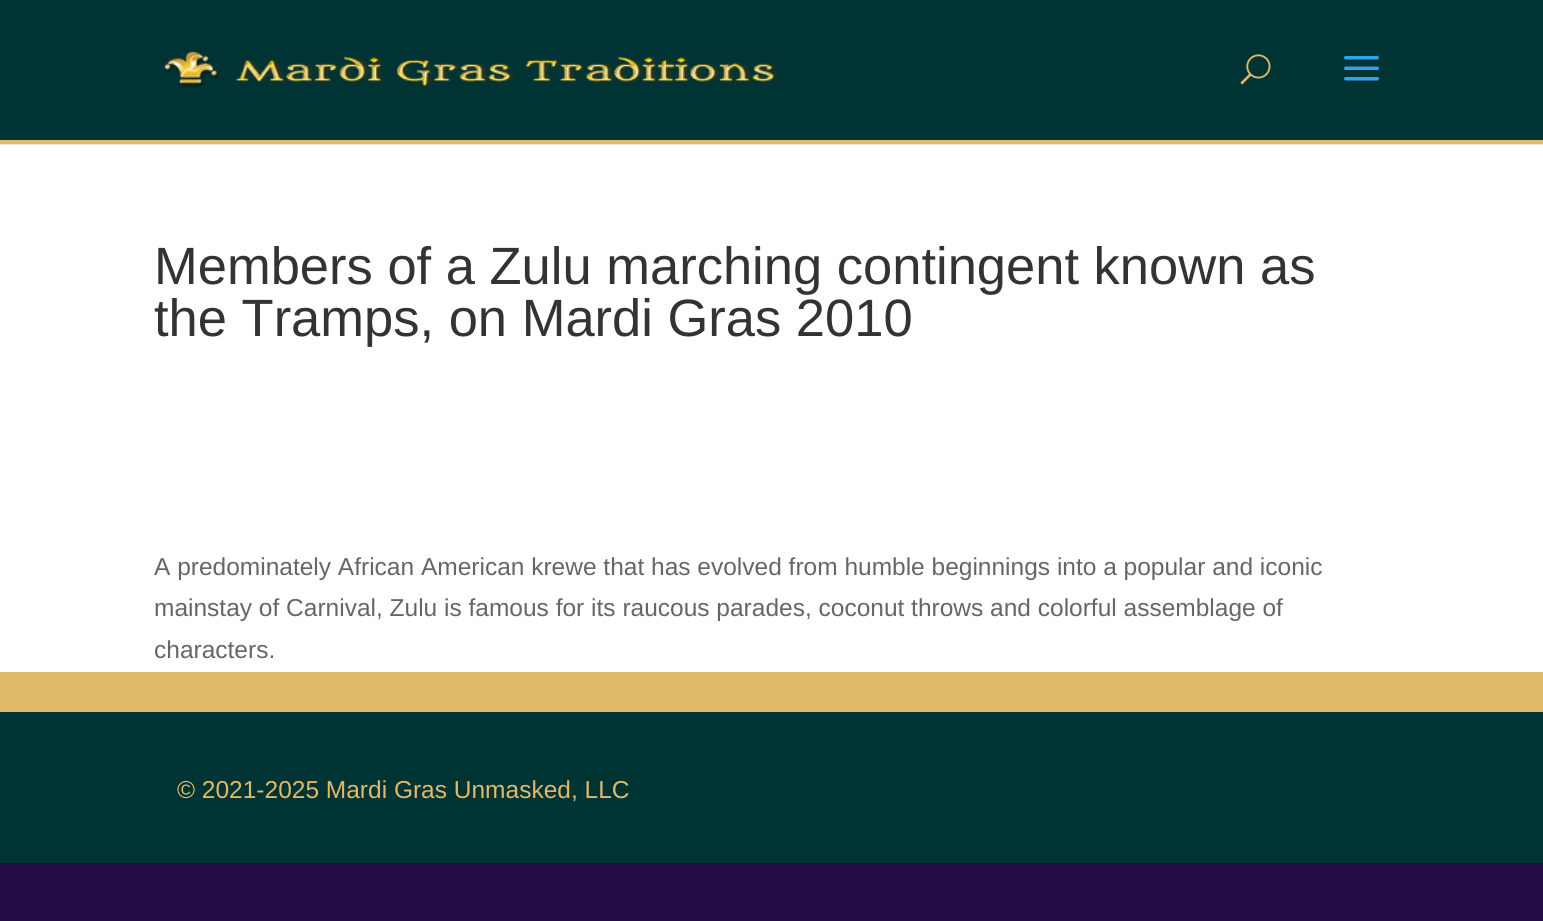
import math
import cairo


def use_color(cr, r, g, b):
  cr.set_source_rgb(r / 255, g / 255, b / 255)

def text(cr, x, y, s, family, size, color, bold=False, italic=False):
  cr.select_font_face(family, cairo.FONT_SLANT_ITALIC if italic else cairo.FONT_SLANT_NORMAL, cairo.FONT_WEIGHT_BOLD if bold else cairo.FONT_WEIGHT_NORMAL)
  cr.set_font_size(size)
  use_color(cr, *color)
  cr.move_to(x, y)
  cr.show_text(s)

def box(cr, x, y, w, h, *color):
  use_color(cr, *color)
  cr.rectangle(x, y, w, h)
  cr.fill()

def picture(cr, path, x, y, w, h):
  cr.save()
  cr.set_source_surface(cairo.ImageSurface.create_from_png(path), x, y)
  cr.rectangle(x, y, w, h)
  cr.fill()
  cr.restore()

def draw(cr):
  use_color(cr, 35, 12, 70)
  cr.paint()
  use_color(cr, 230, 230, 230)
  cr.new_path()
  cr.move_to(0, 144)
  cr.line_to(0, 145)
  cr.line_to(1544, 145)
  cr.line_to(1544, 2)
  cr.line_to(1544, 144)
  cr.close_path()
  cr.fill()
  box(cr, 0, 0, 1543, 140, 0, 51, 51)
  box(cr, 0, 140, 1543, 4, 223, 186, 105)
  picture(cr, "img_01.png", 164, 51, 615, 37)
  picture(cr, "img_02.png", 1240, 54, 31, 31)
  picture(cr, "img_03.png", 1344, 56, 35, 25)
  box(cr, 0, 145, 1543, 527, 255, 255, 255)
  box(cr, 0, 712, 1543, 151, 0, 51, 51)
  box(cr, 0, 672, 1543, 40, 223, 186, 105)
  text(cr, 154, 284, "Members of a Zulu marching contingent known as", "Liberation Sans", 52.5, (51, 51, 51))
  text(cr, 154, 336, "the Tramps, on Mardi Gras 2010", "Liberation Sans", 52.5, (51, 51, 51))
  text(cr, 154, 575, "A predominately African American krewe that has evolved from humble beginnings into a popular and iconic", "Liberation Sans", 24.5, (102, 102, 102))
  text(cr, 154, 616, "mainstay of Carnival, Zulu is famous for its raucous parades, coconut throws and colorful assemblage of", "Liberation Sans", 24.5, (102, 102, 102))
  text(cr, 154, 658, "characters.", "Liberation Sans", 24.5, (102, 102, 102))
  text(cr, 177, 798, "© 2021-2025 Mardi Gras Unmasked, LLC", "Liberation Sans", 24.5, (223, 186, 105))


surface = cairo.ImageSurface(cairo.FORMAT_RGB24, 1543, 921)
cr = cairo.Context(surface)
options = cairo.FontOptions()
options.set_hint_metrics(cairo.HINT_METRICS_OFF)
options.set_hint_style(cairo.HINT_STYLE_NONE)
cr.set_font_options(options)
cr.set_miter_limit(4)
draw(cr)
surface.write_to_png("out.png")
